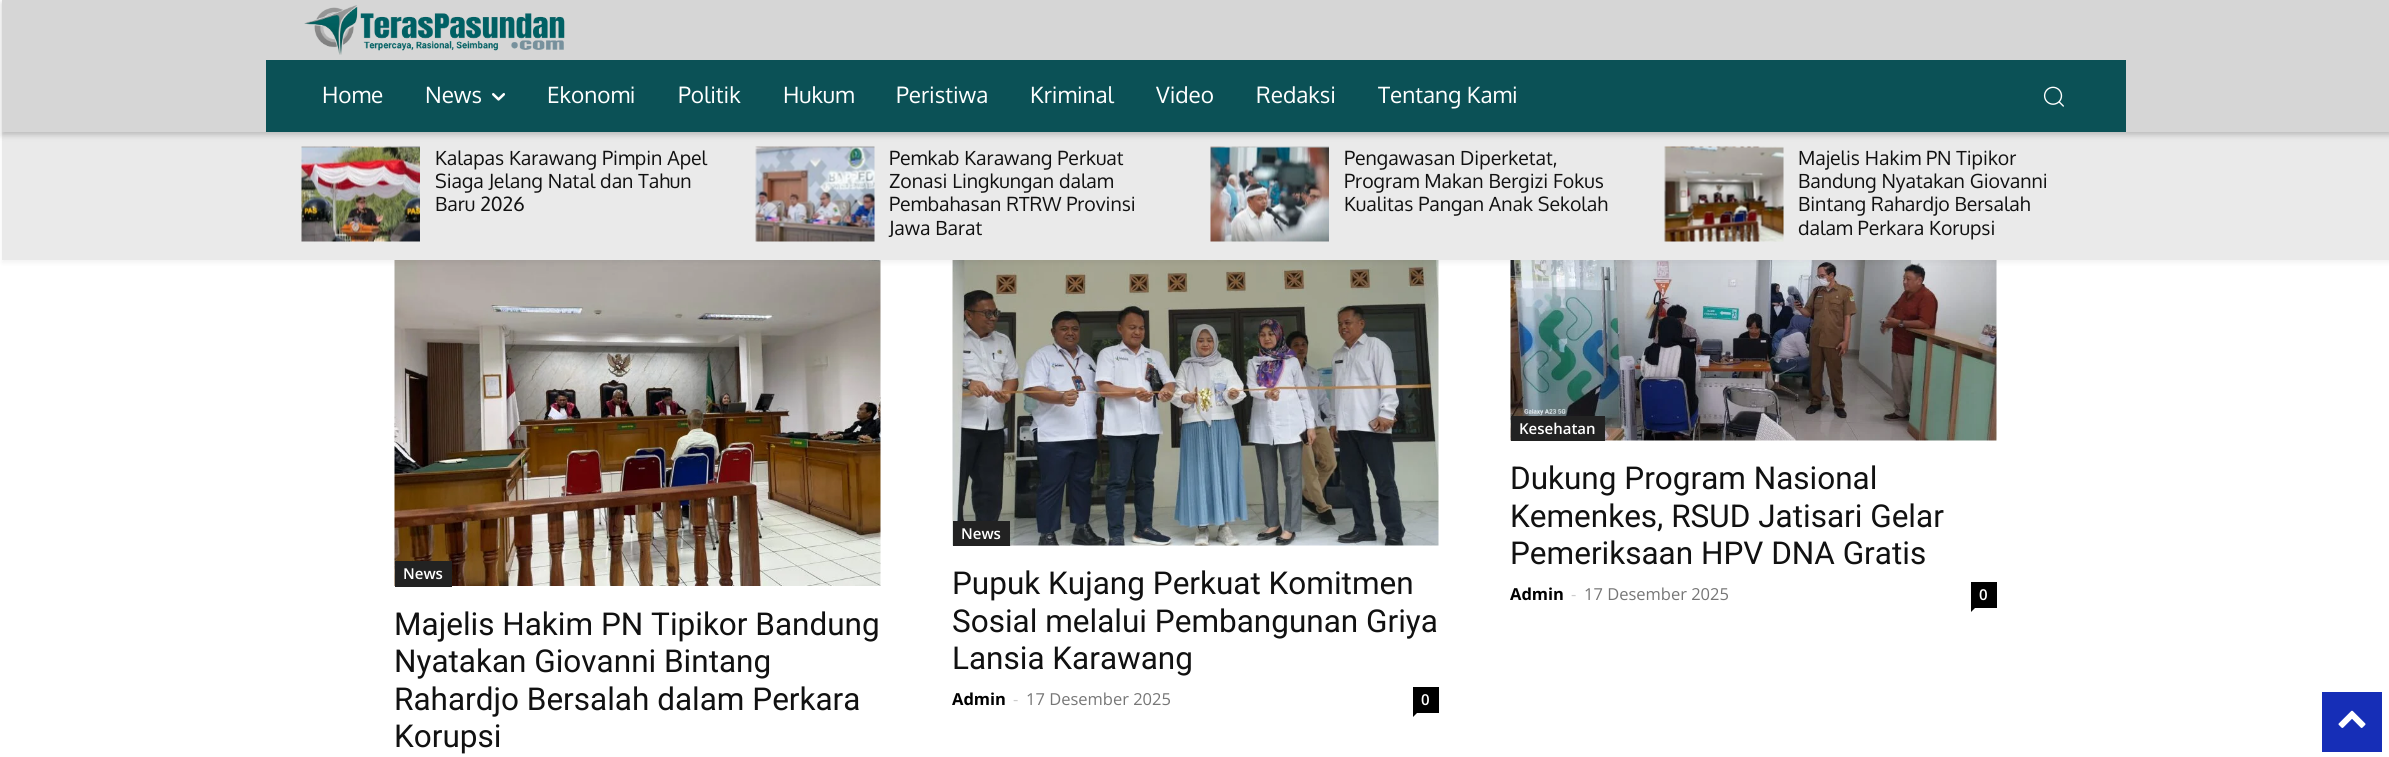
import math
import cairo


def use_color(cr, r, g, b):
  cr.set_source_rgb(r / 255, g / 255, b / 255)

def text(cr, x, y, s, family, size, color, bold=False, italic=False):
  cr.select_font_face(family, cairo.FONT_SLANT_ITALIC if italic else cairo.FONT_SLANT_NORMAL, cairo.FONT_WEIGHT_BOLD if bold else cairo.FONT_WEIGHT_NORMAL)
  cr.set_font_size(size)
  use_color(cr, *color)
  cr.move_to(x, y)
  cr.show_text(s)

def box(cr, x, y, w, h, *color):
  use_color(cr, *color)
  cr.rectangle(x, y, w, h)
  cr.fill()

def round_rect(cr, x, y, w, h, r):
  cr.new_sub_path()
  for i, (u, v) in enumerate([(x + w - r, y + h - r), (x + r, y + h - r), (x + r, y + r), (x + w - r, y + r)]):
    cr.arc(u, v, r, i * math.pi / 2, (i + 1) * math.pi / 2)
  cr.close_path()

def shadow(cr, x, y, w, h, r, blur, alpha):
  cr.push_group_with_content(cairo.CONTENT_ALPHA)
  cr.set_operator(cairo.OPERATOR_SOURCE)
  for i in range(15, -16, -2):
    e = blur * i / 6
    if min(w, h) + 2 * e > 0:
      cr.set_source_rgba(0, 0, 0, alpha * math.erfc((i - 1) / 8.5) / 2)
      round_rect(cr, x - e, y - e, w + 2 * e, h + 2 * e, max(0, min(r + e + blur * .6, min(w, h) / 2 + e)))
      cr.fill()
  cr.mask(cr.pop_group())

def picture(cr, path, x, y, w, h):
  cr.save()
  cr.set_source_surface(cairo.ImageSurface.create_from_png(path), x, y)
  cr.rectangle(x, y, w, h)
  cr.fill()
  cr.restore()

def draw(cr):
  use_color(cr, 255, 255, 255)
  cr.paint()
  box(cr, 2, 0, 2387, 132, 214, 214, 214)
  picture(cr, "img_01.png", 304, 5, 261, 50)
  box(cr, 266, 60, 1860, 72, 11, 81, 86)
  box(cr, 2, 132, 2387, 128, 234, 234, 234)
  cr.save()
  cr.set_fill_rule(cairo.FILL_RULE_EVEN_ODD)
  cr.new_path()
  cr.move_to(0, 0)
  cr.line_to(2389, 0)
  cr.line_to(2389, 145)
  cr.line_to(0, 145)
  cr.close_path()
  cr.move_to(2, 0)
  cr.line_to(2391, 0)
  cr.line_to(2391, 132)
  cr.line_to(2, 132)
  cr.close_path()
  cr.clip()
  use_color(cr, 0, 0, 0)
  shadow(cr, 2, 3, 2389, 132, 0, 3, 0.2)
  cr.restore()
  picture(cr, "img_02.png", 492, 93, 13, 8)
  picture(cr, "img_03.png", 2043, 86, 21, 21)
  picture(cr, "img_04.png", 301, 146, 119, 96)
  picture(cr, "img_05.png", 755, 146, 120, 96)
  picture(cr, "img_06.png", 1210, 146, 119, 96)
  picture(cr, "img_07.png", 1664, 146, 120, 96)
  picture(cr, "img_08.png", 394, 260, 487, 326)
  picture(cr, "img_09.png", 952, 260, 487, 286)
  picture(cr, "img_10.png", 1510, 260, 487, 181)
  cr.save()
  cr.set_fill_rule(cairo.FILL_RULE_EVEN_ODD)
  cr.new_path()
  cr.move_to(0, 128)
  cr.line_to(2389, 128)
  cr.line_to(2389, 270)
  cr.line_to(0, 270)
  cr.close_path()
  cr.move_to(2, 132)
  cr.line_to(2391, 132)
  cr.line_to(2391, 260)
  cr.line_to(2, 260)
  cr.close_path()
  cr.clip()
  use_color(cr, 0, 0, 0)
  shadow(cr, 2, 135, 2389, 128, 0, 2, 0.05)
  cr.restore()
  box(cr, 395, 561, 57, 26, 34, 34, 34)
  box(cr, 953, 521, 57, 25, 34, 34, 34)
  box(cr, 1413, 687, 26, 26, 0, 0, 0)
  cr.new_path()
  cr.move_to(1413, 712.5)
  cr.line_to(1417.5, 712.5)
  cr.line_to(1413, 717)
  cr.close_path()
  cr.fill()
  box(cr, 1511, 416, 94, 25, 34, 34, 34)
  box(cr, 1971, 582, 26, 26, 0, 0, 0)
  cr.new_path()
  cr.move_to(1971, 607.5)
  cr.line_to(1975.5, 607.5)
  cr.line_to(1971, 612)
  cr.close_path()
  cr.fill()
  box(cr, 2322, 692, 60, 60, 22, 46, 183)
  picture(cr, "img_11.png", 2338, 710, 28, 18)
  text(cr, 322, 103, "Home", "Oxygen", 22.5, (255, 255, 255))
  text(cr, 425, 103, "News", "Oxygen", 22.5, (255, 255, 255))
  text(cr, 547, 103, "Ekonomi", "Oxygen", 22.5, (255, 255, 255))
  text(cr, 678, 103, "Politik", "Oxygen", 22.5, (255, 255, 255))
  text(cr, 783, 103, "Hukum", "Oxygen", 22.5, (255, 255, 255))
  text(cr, 896, 103, "Peristiwa", "Oxygen", 22.5, (255, 255, 255))
  text(cr, 1030, 103, "Kriminal", "Oxygen", 22.5, (255, 255, 255))
  text(cr, 1156, 103, "Video", "Oxygen", 22.5, (255, 255, 255))
  text(cr, 1256, 103, "Redaksi", "Oxygen", 22.5, (255, 255, 255))
  text(cr, 1378, 103, "Tentang Kami", "Oxygen", 22.5, (255, 255, 255))
  text(cr, 435, 165, "Kalapas Karawang Pimpin Apel", "Oxygen", 19.5, (17, 17, 17))
  text(cr, 435, 188, "Siaga Jelang Natal dan Tahun", "Oxygen", 19.5, (17, 17, 17))
  text(cr, 435, 211, "Baru 2026", "Oxygen", 19.5, (17, 17, 17))
  text(cr, 889, 165, "Pemkab Karawang Perkuat", "Oxygen", 19.5, (17, 17, 17))
  text(cr, 889, 188, "Zonasi Lingkungan dalam", "Oxygen", 19.5, (17, 17, 17))
  text(cr, 889, 211, "Pembahasan RTRW Provinsi", "Oxygen", 19.5, (17, 17, 17))
  text(cr, 889, 235, "Jawa Barat", "Oxygen", 19.5, (17, 17, 17))
  text(cr, 1344, 165, "Pengawasan Diperketat,", "Oxygen", 19.5, (17, 17, 17))
  text(cr, 1344, 188, "Program Makan Bergizi Fokus", "Oxygen", 19.5, (17, 17, 17))
  text(cr, 1344, 211, "Kualitas Pangan Anak Sekolah", "Oxygen", 19.5, (17, 17, 17))
  text(cr, 1798, 165, "Majelis Hakim PN Tipikor", "Oxygen", 19.5, (17, 17, 17))
  text(cr, 1798, 188, "Bandung Nyatakan Giovanni", "Oxygen", 19.5, (17, 17, 17))
  text(cr, 1798, 211, "Bintang Rahardjo Bersalah", "Oxygen", 19.5, (17, 17, 17))
  text(cr, 1798, 235, "dalam Perkara Korupsi", "Oxygen", 19.5, (17, 17, 17))
  text(cr, 403, 579, "News", "Open Sans SemiBold", 15, (255, 255, 255))
  text(cr, 394, 635, "Majelis Hakim PN Tipikor Bandung", "Roboto", 31.5, (17, 17, 17))
  text(cr, 394, 672, "Nyatakan Giovanni Bintang", "Roboto", 31.5, (17, 17, 17))
  text(cr, 394, 710, "Rahardjo Bersalah dalam Perkara", "Roboto", 31.5, (17, 17, 17))
  text(cr, 394, 747, "Korupsi", "Roboto", 31.5, (17, 17, 17))
  text(cr, 961, 539, "News", "Open Sans SemiBold", 15, (255, 255, 255))
  text(cr, 952, 594, "Pupuk Kujang Perkuat Komitmen", "Roboto", 31.5, (17, 17, 17))
  text(cr, 952, 632, "Sosial melalui Pembangunan Griya", "Roboto", 31.5, (17, 17, 17))
  text(cr, 952, 669, "Lansia Karawang", "Roboto", 31.5, (17, 17, 17))
  text(cr, 952, 705, "Admin", "Open Sans", 16.5, (0, 0, 0), bold=True)
  text(cr, 1013, 705, "-", "Open Sans", 16.5, (204, 204, 204))
  text(cr, 1026, 705, "17 Desember 2025", "Open Sans", 16.5, (118, 118, 118))
  text(cr, 1421, 705, "0", "Open Sans SemiBold", 15, (255, 255, 255))
  text(cr, 1519, 434, "Kesehatan", "Open Sans SemiBold", 15, (255, 255, 255))
  text(cr, 1510, 489, "Dukung Program Nasional", "Roboto", 31.5, (17, 17, 17))
  text(cr, 1510, 527, "Kemenkes, RSUD Jatisari Gelar", "Roboto", 31.5, (17, 17, 17))
  text(cr, 1510, 564, "Pemeriksaan HPV DNA Gratis", "Roboto", 31.5, (17, 17, 17))
  text(cr, 1510, 600, "Admin", "Open Sans", 16.5, (0, 0, 0), bold=True)
  text(cr, 1571, 600, "-", "Open Sans", 16.5, (204, 204, 204))
  text(cr, 1584, 600, "17 Desember 2025", "Open Sans", 16.5, (118, 118, 118))
  text(cr, 1979, 600, "0", "Open Sans SemiBold", 15, (255, 255, 255))


surface = cairo.ImageSurface(cairo.FORMAT_RGB24, 2389, 757)
cr = cairo.Context(surface)
options = cairo.FontOptions()
options.set_hint_metrics(cairo.HINT_METRICS_OFF)
options.set_hint_style(cairo.HINT_STYLE_NONE)
cr.set_font_options(options)
cr.set_miter_limit(4)
draw(cr)
surface.write_to_png("out.png")
